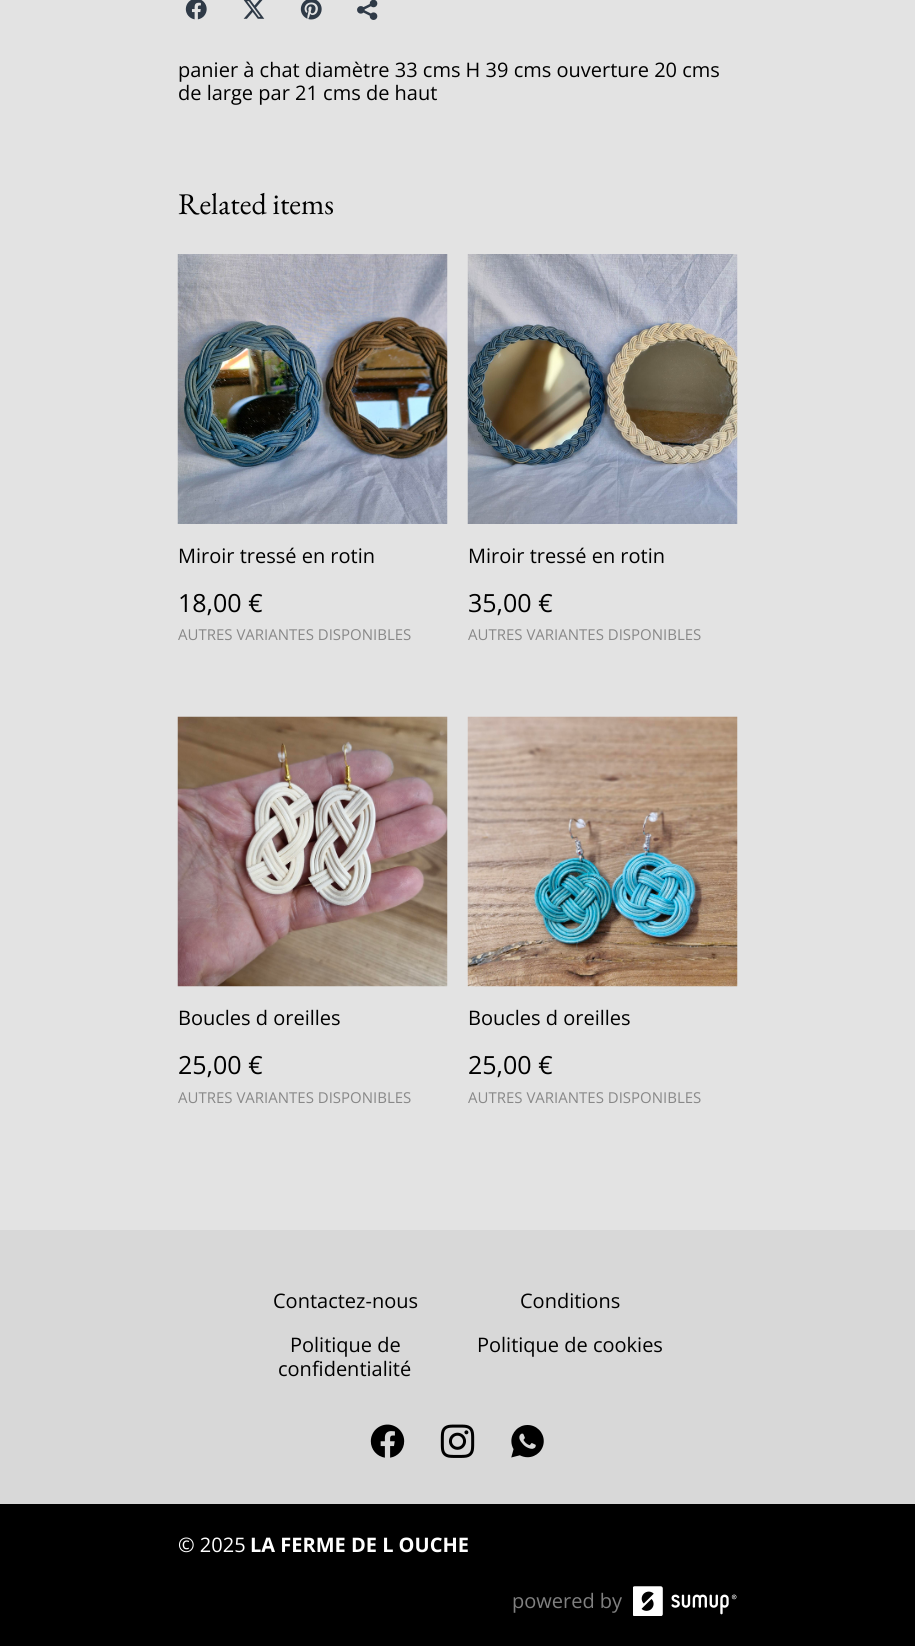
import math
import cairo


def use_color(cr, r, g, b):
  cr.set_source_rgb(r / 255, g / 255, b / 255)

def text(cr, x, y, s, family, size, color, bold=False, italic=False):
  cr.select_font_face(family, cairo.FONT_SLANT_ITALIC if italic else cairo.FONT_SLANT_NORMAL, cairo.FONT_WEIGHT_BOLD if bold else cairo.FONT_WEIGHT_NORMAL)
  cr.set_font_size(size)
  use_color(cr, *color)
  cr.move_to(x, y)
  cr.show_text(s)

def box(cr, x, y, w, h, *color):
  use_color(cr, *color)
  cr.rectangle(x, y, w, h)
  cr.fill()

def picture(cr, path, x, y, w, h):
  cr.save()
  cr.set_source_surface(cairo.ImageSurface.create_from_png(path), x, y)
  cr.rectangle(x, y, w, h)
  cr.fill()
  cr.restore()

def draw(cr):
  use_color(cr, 227, 227, 227)
  cr.paint()
  picture(cr, "img_01.png", 185, 0, 22, 20)
  picture(cr, "img_02.png", 243, 0, 22, 19)
  picture(cr, "img_03.png", 300, 0, 22, 20)
  picture(cr, "img_04.png", 357, 0, 21, 20)
  picture(cr, "img_05.png", 177, 254, 271, 270)
  picture(cr, "img_06.png", 467, 254, 271, 270)
  picture(cr, "img_07.png", 177, 716, 271, 271)
  picture(cr, "img_08.png", 467, 716, 271, 271)
  box(cr, 0, 1230, 915, 274, 216, 216, 216)
  picture(cr, "img_09.png", 370, 1424, 35, 34)
  picture(cr, "img_10.png", 440, 1424, 35, 34)
  picture(cr, "img_11.png", 511, 1425, 33, 33)
  box(cr, 0, 1504, 915, 142, 0, 0, 0)
  picture(cr, "img_12.png", 633, 1586, 104, 30)
  text(cr, 178, 77, "panier à chat diamètre 33 cms H 39 cms ouverture 20 cms", "Open Sans", 20, (0, 0, 0))
  text(cr, 178, 100, "de large par 21 cms de haut", "Open Sans", 20, (0, 0, 0))
  text(cr, 178, 214, "Related items", "EB Garamond", 30, (0, 0, 0))
  text(cr, 178, 563, "Miroir tressé en rotin", "Open Sans", 20, (0, 0, 0))
  text(cr, 178, 612, "18,00 €", "Open Sans", 25, (0, 0, 0))
  text(cr, 178, 640, "AUTRES VARIANTES DISPONIBLES", "Open Sans", 15, (136, 136, 136))
  text(cr, 468, 563, "Miroir tressé en rotin", "Open Sans", 20, (0, 0, 0))
  text(cr, 468, 612, "35,00 €", "Open Sans", 25, (0, 0, 0))
  text(cr, 468, 640, "AUTRES VARIANTES DISPONIBLES", "Open Sans", 15, (136, 136, 136))
  text(cr, 178, 1025, "Boucles d oreilles", "Open Sans", 20, (0, 0, 0))
  text(cr, 178, 1074, "25,00 €", "Open Sans", 25, (0, 0, 0))
  text(cr, 178, 1103, "AUTRES VARIANTES DISPONIBLES", "Open Sans", 15, (136, 136, 136))
  text(cr, 468, 1025, "Boucles d oreilles", "Open Sans", 20, (0, 0, 0))
  text(cr, 468, 1074, "25,00 €", "Open Sans", 25, (0, 0, 0))
  text(cr, 468, 1103, "AUTRES VARIANTES DISPONIBLES", "Open Sans", 15, (136, 136, 136))
  text(cr, 273, 1308, "Contactez-nous", "Open Sans", 20, (0, 0, 0))
  text(cr, 520, 1308, "Conditions", "Open Sans", 20, (0, 0, 0))
  text(cr, 290, 1352, "Politique de", "Open Sans", 20, (0, 0, 0))
  text(cr, 278, 1376, "confidentialité", "Open Sans", 20, (0, 0, 0))
  text(cr, 477, 1352, "Politique de cookies", "Open Sans", 20, (0, 0, 0))
  text(cr, 178, 1552, "© 2025", "Open Sans", 20, (255, 255, 255))
  text(cr, 250, 1552, "LA FERME DE L OUCHE", "Open Sans", 20, (255, 255, 255), bold=True)
  text(cr, 512, 1608, "powered by", "Open Sans", 20, (128, 128, 128))


surface = cairo.ImageSurface(cairo.FORMAT_RGB24, 915, 1646)
cr = cairo.Context(surface)
options = cairo.FontOptions()
options.set_hint_metrics(cairo.HINT_METRICS_OFF)
options.set_hint_style(cairo.HINT_STYLE_NONE)
cr.set_font_options(options)
cr.set_miter_limit(4)
draw(cr)
surface.write_to_png("out.png")
